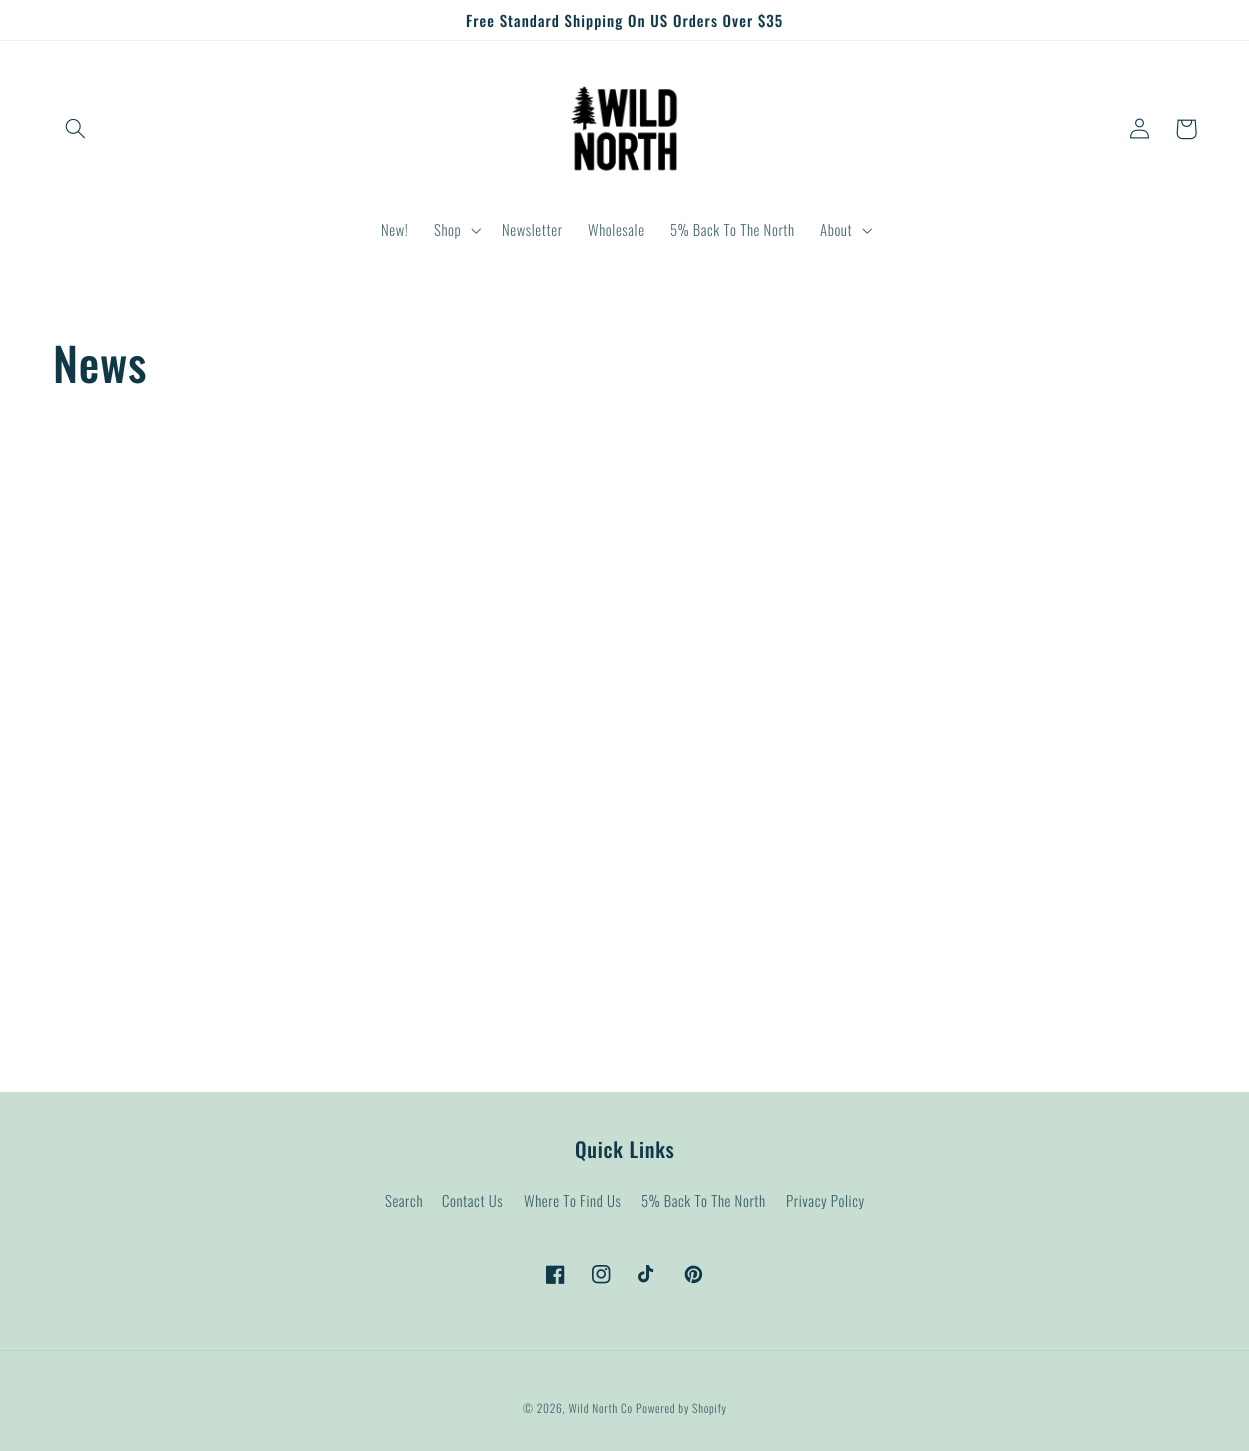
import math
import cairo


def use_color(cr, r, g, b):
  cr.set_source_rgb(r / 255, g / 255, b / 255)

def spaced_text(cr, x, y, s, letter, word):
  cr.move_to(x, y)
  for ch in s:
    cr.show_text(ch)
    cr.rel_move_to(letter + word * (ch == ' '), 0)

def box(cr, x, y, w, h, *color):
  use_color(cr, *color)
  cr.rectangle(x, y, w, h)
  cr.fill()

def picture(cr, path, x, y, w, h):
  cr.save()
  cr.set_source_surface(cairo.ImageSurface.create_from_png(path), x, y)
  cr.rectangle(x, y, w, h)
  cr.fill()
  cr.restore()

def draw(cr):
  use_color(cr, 255, 255, 255)
  cr.paint()
  box(cr, 0, 40, 1249, 1, 236, 239, 240)
  picture(cr, "img_01.png", 65, 118, 20, 21)
  picture(cr, "img_02.png", 570, 86, 108, 85)
  picture(cr, "img_03.png", 1130, 118, 19, 21)
  picture(cr, "img_04.png", 1176, 119, 21, 21)
  picture(cr, "img_05.png", 471, 228, 10, 6)
  picture(cr, "img_05.png", 862, 228, 10, 6)
  box(cr, 0, 1092, 1249, 359, 201, 222, 211)
  picture(cr, "img_06.png", 546, 1265, 19, 19)
  picture(cr, "img_07.png", 592, 1265, 19, 19)
  picture(cr, "img_08.png", 638, 1265, 16, 18)
  picture(cr, "img_09.png", 684, 1265, 19, 19)
  box(cr, 0, 1350, 1249, 1, 186, 209, 200)
  cr.select_font_face("Oswald Medium")
  cr.set_font_size(14.95)
  use_color(cr, 16, 57, 72)
  spaced_text(cr, 466, 27, "Free Standard Shipping On US Orders Over $35", 1.05, 0)
  cr.select_font_face("Oswald Light")
  cr.set_font_size(14.75)
  use_color(cr, 76, 107, 118)
  spaced_text(cr, 381, 236, "New!", 0.6, 0)
  spaced_text(cr, 434, 236, "Shop", 0.6, 0)
  spaced_text(cr, 502, 236, "Newsletter", 0.6, 0)
  spaced_text(cr, 588, 236, "Wholesale", 0.6, 0)
  spaced_text(cr, 670, 236, "5% Back To The North", 0.6, 0)
  spaced_text(cr, 820, 236, "About", 0.6, 0)
  cr.select_font_face("Oswald Medium")
  cr.set_font_size(46)
  use_color(cr, 16, 57, 72)
  spaced_text(cr, 53, 383, "News", 0.75, 0)
  cr.set_font_size(20.5)
  spaced_text(cr, 575, 1158, "Quick Links", 0.75, 0)
  cr.select_font_face("Oswald Light")
  cr.set_font_size(14.75)
  use_color(cr, 62, 98, 107)
  spaced_text(cr, 385, 1207, "Search", 0.6, 0)
  spaced_text(cr, 442, 1207, "Contact Us", 0.6, 0)
  spaced_text(cr, 524, 1207, "Where To Find Us", 0.6, 0)
  spaced_text(cr, 641, 1207, "5% Back To The North", 0.6, 0)
  spaced_text(cr, 786, 1207, "Privacy Policy", 0.6, 0)
  cr.set_font_size(11.5)
  spaced_text(cr, 523, 1413, "© 2026, Wild North Co Powered by Shopify", 0.75, 0)


surface = cairo.ImageSurface(cairo.FORMAT_RGB24, 1249, 1451)
cr = cairo.Context(surface)
options = cairo.FontOptions()
options.set_hint_metrics(cairo.HINT_METRICS_OFF)
options.set_hint_style(cairo.HINT_STYLE_NONE)
cr.set_font_options(options)
cr.set_miter_limit(4)
draw(cr)
surface.write_to_png("out.png")
